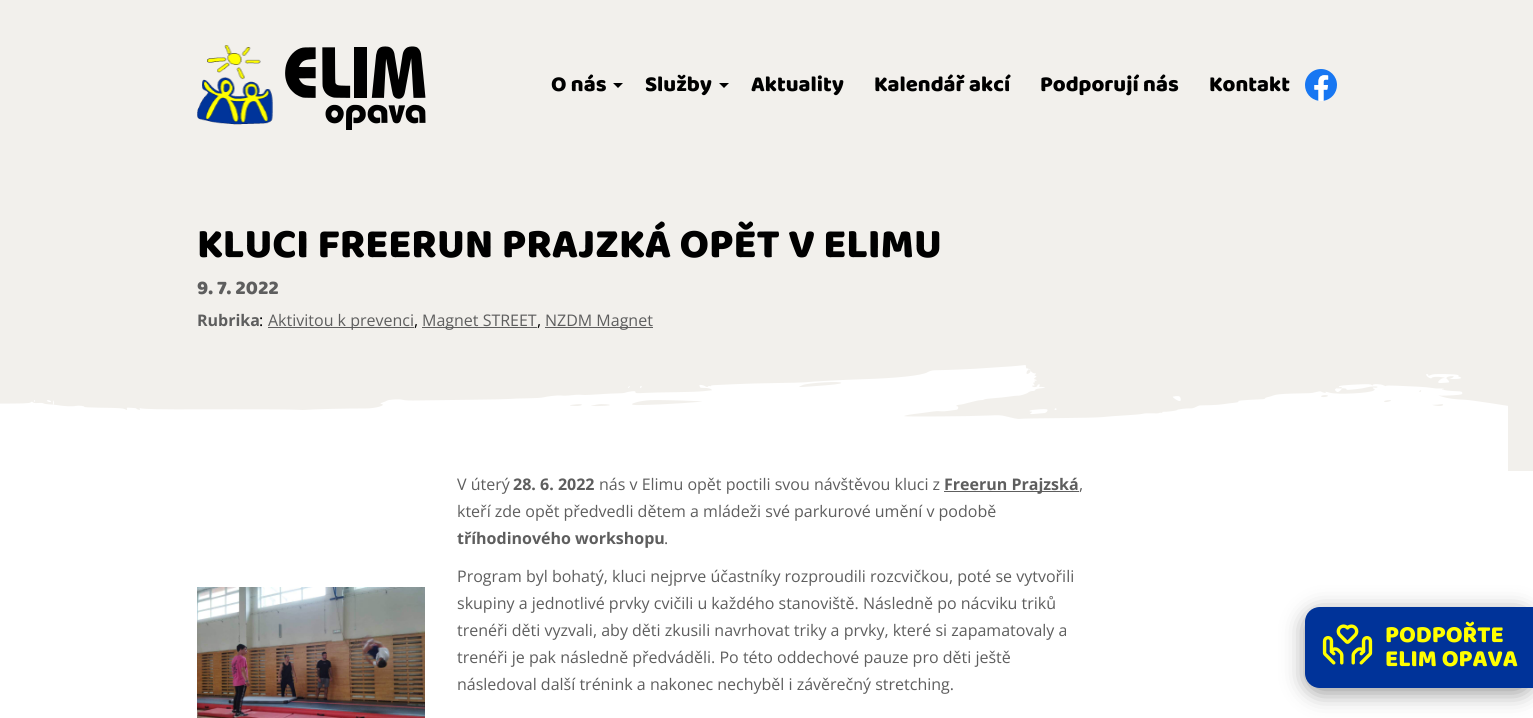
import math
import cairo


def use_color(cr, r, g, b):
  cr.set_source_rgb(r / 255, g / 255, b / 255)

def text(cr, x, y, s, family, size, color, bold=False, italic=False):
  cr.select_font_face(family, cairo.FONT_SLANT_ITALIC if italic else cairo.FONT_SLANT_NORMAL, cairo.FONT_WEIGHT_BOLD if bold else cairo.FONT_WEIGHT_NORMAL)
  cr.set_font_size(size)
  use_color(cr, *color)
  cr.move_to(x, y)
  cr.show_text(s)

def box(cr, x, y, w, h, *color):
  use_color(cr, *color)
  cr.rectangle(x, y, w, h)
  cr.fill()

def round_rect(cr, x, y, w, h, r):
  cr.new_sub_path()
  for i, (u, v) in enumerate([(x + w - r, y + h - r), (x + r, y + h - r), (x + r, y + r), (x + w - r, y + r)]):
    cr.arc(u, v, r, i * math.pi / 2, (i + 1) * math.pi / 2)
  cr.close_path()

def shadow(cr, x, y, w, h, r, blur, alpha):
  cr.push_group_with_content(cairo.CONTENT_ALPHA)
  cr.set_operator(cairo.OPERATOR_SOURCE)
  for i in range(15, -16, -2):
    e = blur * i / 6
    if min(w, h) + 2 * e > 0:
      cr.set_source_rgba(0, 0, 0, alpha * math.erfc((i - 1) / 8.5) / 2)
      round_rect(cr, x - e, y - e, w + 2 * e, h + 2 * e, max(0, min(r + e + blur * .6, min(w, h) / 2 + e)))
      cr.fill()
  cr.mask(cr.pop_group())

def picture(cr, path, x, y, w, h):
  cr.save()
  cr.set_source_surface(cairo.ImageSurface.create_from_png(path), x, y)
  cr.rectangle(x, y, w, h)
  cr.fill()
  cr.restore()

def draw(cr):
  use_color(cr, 255, 255, 255)
  cr.paint()
  box(cr, 0, 0, 1533, 471, 242, 240, 236)
  picture(cr, "img_01.png", 197, 45, 76, 80)
  picture(cr, "img_02.png", 285, 46, 141, 84)
  use_color(cr, 0, 0, 0)
  cr.new_path()
  cr.move_to(613, 83)
  cr.line_to(618, 88)
  cr.line_to(623, 83)
  cr.close_path()
  cr.fill()
  cr.new_path()
  cr.move_to(719, 83)
  cr.line_to(724, 88)
  cr.line_to(729, 83)
  cr.close_path()
  cr.fill()
  picture(cr, "img_03.png", 1305, 69, 32, 32)
  box(cr, 268, 327, 146, 1, 94, 94, 94)
  box(cr, 422, 327, 115, 1, 94, 94, 94)
  box(cr, 545, 327, 108, 1, 94, 94, 94)
  picture(cr, "img_04.png", 0, 365, 1508, 106)
  picture(cr, "img_05.png", 197, 587, 228, 131)
  box(cr, 944, 491, 135, 1, 94, 94, 94)
  use_color(cr, 0, 0, 0)
  shadow(cr, 1305, 612, 228, 81, 15, 11, 0.41)
  use_color(cr, 0, 51, 153)
  cr.new_path()
  cr.move_to(1320, 607)
  cr.line_to(1533, 607)
  cr.line_to(1533, 688)
  cr.line_to(1320, 688)
  cr.curve_to(1311.5, 688, 1305, 681.5, 1305, 673)
  cr.line_to(1305, 622)
  cr.curve_to(1305, 613.5, 1311.5, 607, 1320, 607)
  cr.close_path()
  cr.fill()
  picture(cr, "img_06.png", 1322, 624, 51, 41)
  text(cr, 551, 91, "O nás", "Baloo 2 ExtraBold", 22, (0, 0, 0))
  text(cr, 645, 91, "Služby", "Baloo 2 ExtraBold", 22, (0, 0, 0))
  text(cr, 751, 91, "Aktuality", "Baloo 2 ExtraBold", 22, (0, 0, 0))
  text(cr, 874, 91, "Kalendář akcí", "Baloo 2 ExtraBold", 22, (0, 0, 0))
  text(cr, 1040, 91, "Podporují nás", "Baloo 2 ExtraBold", 22, (0, 0, 0))
  text(cr, 1209, 91, "Kontakt", "Baloo 2 ExtraBold", 22, (0, 0, 0))
  text(cr, 197, 257, "KLUCI FREERUN PRAJZKÁ OPĚT V ELIMU", "Baloo 2 ExtraBold", 42, (0, 0, 0))
  text(cr, 197, 294, "9. 7. 2022", "Baloo 2 ExtraBold", 20, (94, 94, 94))
  text(cr, 197, 326, "Rubrika", "Open Sans", 16, (94, 94, 94), bold=True)
  text(cr, 259, 326, ":", "Open Sans", 16, (0, 0, 0))
  text(cr, 268, 326, "Aktivitou k prevenci", "Open Sans", 16, (94, 94, 94))
  text(cr, 414, 326, ",", "Open Sans", 16, (0, 0, 0))
  text(cr, 422, 326, "Magnet STREET", "Open Sans", 16, (94, 94, 94))
  text(cr, 537, 326, ",", "Open Sans", 16, (0, 0, 0))
  text(cr, 545, 326, "NZDM Magnet", "Open Sans", 16, (94, 94, 94))
  text(cr, 457, 490, "V úterý", "Open Sans", 16, (94, 94, 94))
  text(cr, 513, 490, "28. 6. 2022", "Open Sans", 16, (94, 94, 94), bold=True)
  text(cr, 599, 490, "nás v Elimu opět poctili svou návštěvou kluci z", "Open Sans", 16, (94, 94, 94))
  text(cr, 944, 490, "Freerun Prajzská", "Open Sans", 16, (94, 94, 94), bold=True)
  text(cr, 1079, 490, ",", "Open Sans", 16, (94, 94, 94))
  text(cr, 457, 517, "kteří zde opět předvedli dětem a mládeži své parkurové umění v podobě", "Open Sans", 16, (94, 94, 94))
  text(cr, 457, 544, "tříhodinového workshopu", "Open Sans", 16, (94, 94, 94), bold=True)
  text(cr, 664, 544, ".", "Open Sans", 16, (94, 94, 94))
  text(cr, 457, 582, "Program byl bohatý, kluci nejprve účastníky rozproudili rozcvičkou, poté se vytvořili", "Open Sans", 16, (94, 94, 94))
  text(cr, 457, 609, "skupiny a jednotlivé prvky cvičili u každého stanoviště. Následně po nácviku triků", "Open Sans", 16, (94, 94, 94))
  text(cr, 457, 636, "trenéři děti vyzvali, aby děti zkusili navrhovat triky a prvky, které si zapamatovaly a", "Open Sans", 16, (94, 94, 94))
  text(cr, 457, 663, "trenéři je pak následně předváděli. Po této oddechové pauze pro děti ještě", "Open Sans", 16, (94, 94, 94))
  text(cr, 457, 690, "následoval další trénink a nakonec nechyběl i závěrečný stretching.", "Open Sans", 16, (94, 94, 94))
  text(cr, 1385, 642, "PODPOŘTE", "Baloo 2 ExtraBold", 24, (255, 255, 0))
  text(cr, 1385, 666, "ELIM OPAVA", "Baloo 2 ExtraBold", 24, (255, 255, 0))


surface = cairo.ImageSurface(cairo.FORMAT_RGB24, 1533, 718)
cr = cairo.Context(surface)
options = cairo.FontOptions()
options.set_hint_metrics(cairo.HINT_METRICS_OFF)
options.set_hint_style(cairo.HINT_STYLE_NONE)
cr.set_font_options(options)
cr.set_miter_limit(4)
draw(cr)
surface.write_to_png("out.png")
